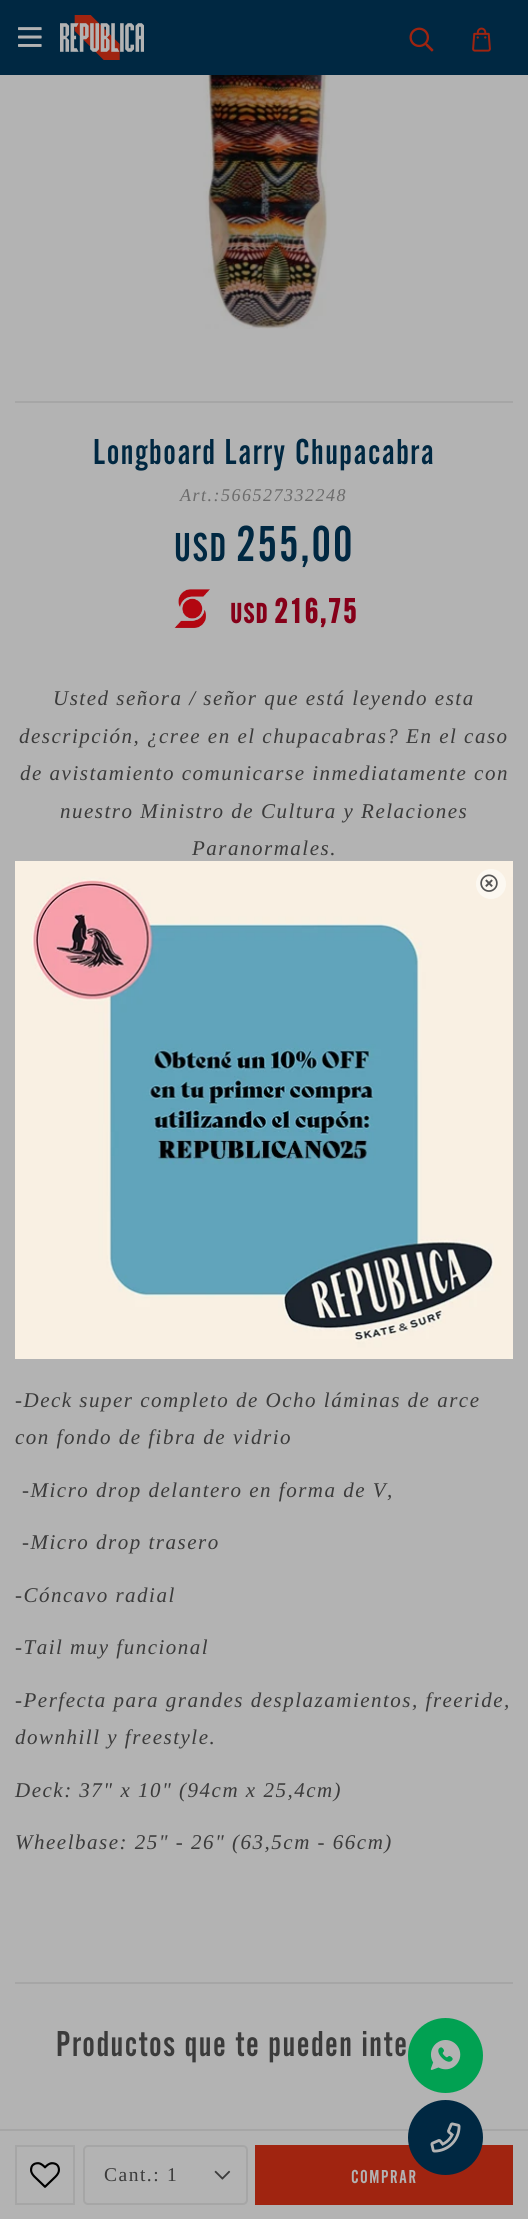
import math
import cairo


def use_color(cr, r, g, b):
  cr.set_source_rgb(r / 255, g / 255, b / 255)

def spaced_text(cr, x, y, s, letter, word):
  cr.move_to(x, y)
  for ch in s:
    cr.show_text(ch)
    cr.rel_move_to(letter + word * (ch == ' '), 0)

def box(cr, x, y, w, h, *color):
  use_color(cr, *color)
  cr.rectangle(x, y, w, h)
  cr.fill()

def round_rect(cr, x, y, w, h, r):
  cr.new_sub_path()
  for i, (u, v) in enumerate([(x + w - r, y + h - r), (x + r, y + h - r), (x + r, y + r), (x + w - r, y + r)]):
    cr.arc(u, v, r, i * math.pi / 2, (i + 1) * math.pi / 2)
  cr.close_path()

def picture(cr, path, x, y, w, h):
  cr.save()
  cr.set_source_surface(cairo.ImageSurface.create_from_png(path), x, y)
  cr.rectangle(x, y, w, h)
  cr.fill()
  cr.restore()

def draw(cr):
  use_color(cr, 179, 179, 179)
  cr.paint()
  box(cr, 0, 0, 528, 75, 0, 40, 66)
  picture(cr, "img_01.png", 18, 27, 24, 20)
  picture(cr, "img_02.png", 60, 15, 84, 45)
  picture(cr, "img_03.png", 409, 27, 25, 25)
  picture(cr, "img_04.png", 472, 27, 19, 25)
  picture(cr, "img_05.png", 203, 75, 127, 254)
  box(cr, 15, 401, 498, 2, 166, 166, 166)
  picture(cr, "img_06.png", 174, 589, 36, 39)
  box(cr, 0, 2129, 528, 2, 166, 166, 166)
  cr.rectangle(16, 2146, 58, 58)
  cr.stroke()
  picture(cr, "img_07.png", 30, 2162, 30, 26)
  picture(cr, "img_08.png", 214, 2170, 17, 10)
  round_rect(cr, 84, 2146, 163, 58, 4)
  cr.stroke()
  box(cr, 255, 2145, 258, 60, 160, 36, 16)
  box(cr, 15, 1982, 498, 2, 166, 166, 166)
  picture(cr, "img_09.png", 15, 861, 498, 498)
  use_color(cr, 252, 248, 241)
  cr.arc(491, 884, 15, 0, 2 * math.pi)
  cr.fill()
  picture(cr, "img_10.png", 480, 874, 18, 18)
  use_color(cr, 1, 161, 82)
  cr.arc(445.5, 2055.5, 37.5, 0, 2 * math.pi)
  cr.fill()
  picture(cr, "img_11.png", 430, 2040, 31, 30)
  cr.select_font_face("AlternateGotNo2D")
  cr.set_font_size(37.5)
  use_color(cr, 0, 40, 66)
  spaced_text(cr, 93, 464, "Longboard Larry Chupacabra", 1.5, 0)
  cr.select_font_face("Liberation Serif", cairo.FONT_SLANT_ITALIC)
  cr.set_font_size(18)
  use_color(cr, 107, 107, 107)
  spaced_text(cr, 180, 501, "Art.:566527332248", 1.5, 0)
  cr.select_font_face("AlternateGotNo2D")
  cr.set_font_size(42)
  use_color(cr, 0, 40, 66)
  spaced_text(cr, 174, 561, "USD", 1.5, 0)
  cr.set_font_size(52.5)
  spaced_text(cr, 236, 561, "255,00", 1.5, 0)
  cr.select_font_face("AlternateGotNo2D", cairo.FONT_SLANT_NORMAL, cairo.FONT_WEIGHT_BOLD)
  cr.set_font_size(29)
  use_color(cr, 134, 0, 25)
  spaced_text(cr, 230, 623, "USD", 1.5, 0)
  cr.set_font_size(36)
  spaced_text(cr, 274, 623, "216,75", 1.5, 0)
  cr.select_font_face("Liberation Serif", cairo.FONT_SLANT_ITALIC)
  cr.set_font_size(21)
  use_color(cr, 59, 59, 59)
  spaced_text(cr, 53, 705, "Usted señora / señor que está leyendo esta", 1.5, 0)
  spaced_text(cr, 19, 743, "descripción, ¿cree en el chupacabras? En el caso", 1.5, 0)
  spaced_text(cr, 20, 780, "de avistamiento comunicarse inmediatamente con", 1.5, 0)
  spaced_text(cr, 60, 818, "nuestro Ministro de Cultura y Relaciones", 1.5, 0)
  spaced_text(cr, 192, 855, "Paranormales.", 1.5, 0)
  cr.select_font_face("Liberation Serif")
  cr.set_font_size(19.5)
  spaced_text(cr, 104, 2181, "Cant.:", 1.5, 0)
  spaced_text(cr, 167, 2181, "1", 1.5, 0)
  cr.select_font_face("AlternateGotNo2D")
  use_color(cr, 179, 179, 179)
  spaced_text(cr, 351, 2183, "COMPRAR", 1.5, 0)
  cr.select_font_face("Liberation Serif", cairo.FONT_SLANT_ITALIC)
  cr.set_font_size(21)
  use_color(cr, 59, 59, 59)
  spaced_text(cr, 15, 1407, "-Deck super completo de Ocho láminas de arce", 1.5, 0)
  spaced_text(cr, 15, 1444, "con fondo de fibra de vidrio", 1.5, 0)
  spaced_text(cr, 22, 1497, "-Micro drop delantero en forma de V,", 1.5, 0)
  spaced_text(cr, 22, 1549, "-Micro drop trasero", 1.5, 0)
  spaced_text(cr, 15, 1602, "-Cóncavo radial", 1.5, 0)
  spaced_text(cr, 15, 1654, "-Tail muy funcional", 1.5, 0)
  spaced_text(cr, 15, 1707, "-Perfecta para grandes desplazamientos, freeride,", 1.5, 0)
  spaced_text(cr, 15, 1744, "downhill y freestyle.", 1.5, 0)
  spaced_text(cr, 15, 1797, "Deck: 37\" x 10\" (94cm x 25,4cm)", 1.5, 0)
  spaced_text(cr, 15, 1849, "Wheelbase: 25\" - 26\" (63,5cm - 66cm)", 1.5, 0)
  cr.select_font_face("AlternateGotNo2D")
  cr.set_font_size(37.5)
  spaced_text(cr, 56, 2056, "Productos que te pueden inte", 1.5, 0)
  use_color(cr, 0, 40, 66)
  cr.new_path()
  cr.arc(445.5, 2137.5, 37.5, 0, 2 * math.pi)
  cr.fill()
  picture(cr, "img_12.png", 430, 2122, 31, 31)


surface = cairo.ImageSurface(cairo.FORMAT_RGB24, 528, 2219)
cr = cairo.Context(surface)
options = cairo.FontOptions()
options.set_hint_metrics(cairo.HINT_METRICS_OFF)
options.set_hint_style(cairo.HINT_STYLE_NONE)
cr.set_font_options(options)
cr.set_miter_limit(4)
draw(cr)
surface.write_to_png("out.png")
